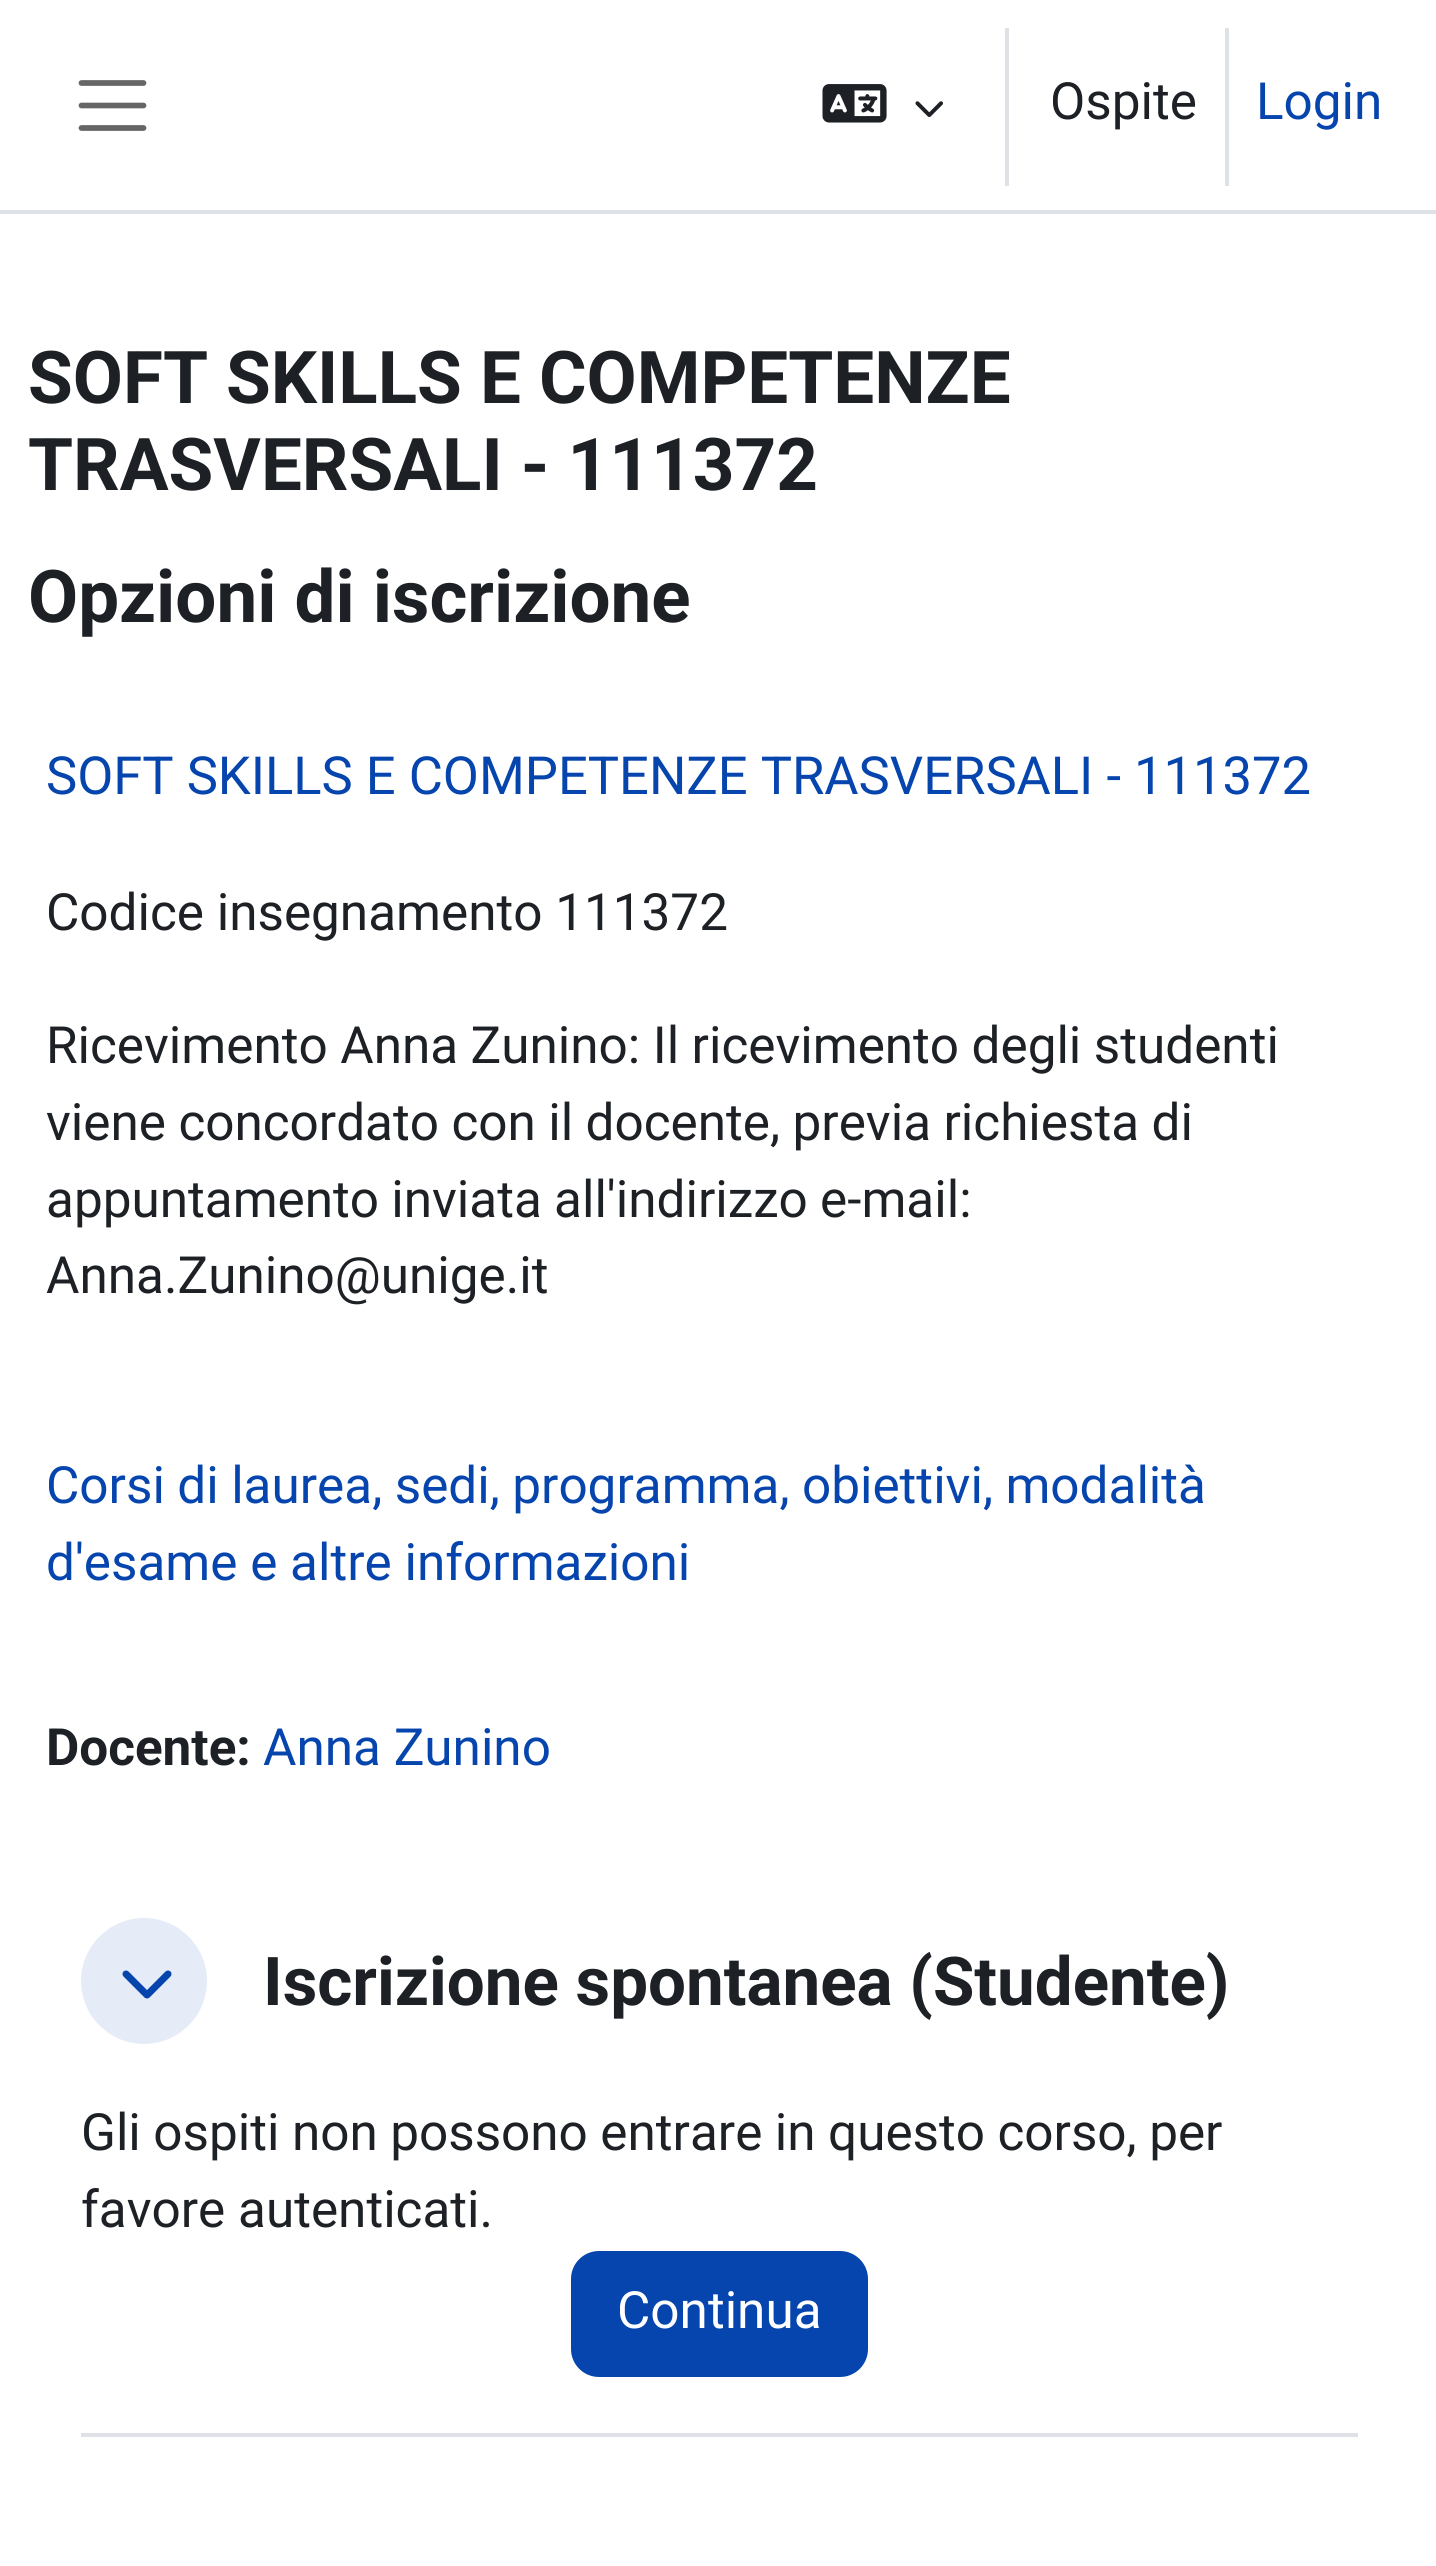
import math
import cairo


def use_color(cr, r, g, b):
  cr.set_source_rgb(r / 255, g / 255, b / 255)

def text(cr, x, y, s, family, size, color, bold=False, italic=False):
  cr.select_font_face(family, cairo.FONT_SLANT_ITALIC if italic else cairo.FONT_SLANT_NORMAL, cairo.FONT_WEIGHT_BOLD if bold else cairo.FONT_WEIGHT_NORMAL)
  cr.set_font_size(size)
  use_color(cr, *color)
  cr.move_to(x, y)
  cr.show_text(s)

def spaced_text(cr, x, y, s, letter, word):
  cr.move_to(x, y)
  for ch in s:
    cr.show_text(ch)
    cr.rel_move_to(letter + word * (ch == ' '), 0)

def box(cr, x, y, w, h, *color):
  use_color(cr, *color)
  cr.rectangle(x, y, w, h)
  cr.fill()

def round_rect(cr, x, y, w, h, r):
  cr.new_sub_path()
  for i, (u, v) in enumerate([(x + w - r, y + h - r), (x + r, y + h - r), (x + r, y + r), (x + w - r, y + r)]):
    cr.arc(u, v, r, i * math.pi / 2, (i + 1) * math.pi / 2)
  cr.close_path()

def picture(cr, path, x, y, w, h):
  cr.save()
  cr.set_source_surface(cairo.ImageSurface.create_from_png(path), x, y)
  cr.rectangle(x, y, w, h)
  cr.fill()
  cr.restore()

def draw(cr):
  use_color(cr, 255, 255, 255)
  cr.paint()
  box(cr, 0, 210, 1436, 4, 222, 226, 230)
  cr.new_path()
  cr.move_to(81.5, 83)
  cr.line_to(143.5, 83)
  cr.move_to(81.5, 105.5)
  cr.line_to(143.5, 105.5)
  cr.move_to(81.5, 128)
  cr.line_to(143.5, 128)
  use_color(cr, 102, 102, 102)
  cr.set_line_width(5.7)
  cr.set_line_cap(cairo.LINE_CAP_ROUND)
  cr.stroke()
  picture(cr, "img_01.png", 822, 84, 65, 39)
  picture(cr, "img_02.png", 915, 101, 28, 16)
  box(cr, 1005, 28, 4, 158, 222, 226, 230)
  box(cr, 1225, 28, 4, 158, 222, 226, 230)
  box(cr, 81, 2433, 1277, 4, 222, 226, 230)
  use_color(cr, 230, 236, 247)
  cr.arc(144, 1981, 63, 0, 2 * math.pi)
  cr.fill()
  picture(cr, "img_03.png", 122, 1970, 50, 29)
  use_color(cr, 6, 69, 173)
  round_rect(cr, 573, 2253, 293, 122, 26)
  cr.fill_preserve()
  cr.set_line_width(4)
  cr.set_line_cap(cairo.LINE_CAP_BUTT)
  cr.stroke()
  text(cr, 1050, 119, "Ospite", "Roboto", 51.25, (29, 33, 37))
  text(cr, 1256, 119, "Login", "Roboto", 51.25, (6, 69, 173))
  text(cr, 28, 403, "SOFT SKILLS E COMPETENZE", "Roboto", 72.75, (29, 33, 37), bold=True)
  text(cr, 28, 490, "TRASVERSALI - 111372", "Roboto", 72.75, (29, 33, 37), bold=True)
  text(cr, 28, 622, "Opzioni di iscrizione", "Roboto", 72.75, (29, 33, 37), bold=True)
  text(cr, 46, 794, "SOFT SKILLS E COMPETENZE TRASVERSALI - 111372", "Roboto", 52.5, (6, 69, 173))
  text(cr, 46, 930, "Codice insegnamento 111372", "Roboto", 51.25, (29, 33, 37))
  spaced_text(cr, 46, 1063, "Ricevimento Anna Zunino: Il ricevimento degli studenti", 0, -0.25)
  spaced_text(cr, 46, 1140, "viene concordato con il docente, previa richiesta di", 0, -0.25)
  spaced_text(cr, 46, 1217, "appuntamento inviata all'indirizzo e-mail:", 0, -0.5)
  text(cr, 46, 1293, "Anna.Zunino@unige.it", "Roboto", 51.25, (29, 33, 37))
  use_color(cr, 6, 69, 173)
  spaced_text(cr, 46, 1503, "Corsi di laurea, sedi, programma, obiettivi, modalità", 0, -0.25)
  text(cr, 46, 1580, "d'esame e altre informazioni", "Roboto", 51.25, (6, 69, 173))
  text(cr, 46, 1765, "Docente:", "Roboto", 51.25, (29, 33, 37), bold=True)
  text(cr, 263, 1765, "Anna Zunino", "Roboto", 51.25, (6, 69, 173))
  text(cr, 263, 2005, "Iscrizione spontanea (Studente)", "Roboto", 67.3, (29, 33, 37), bold=True)
  cr.select_font_face("Roboto")
  cr.set_font_size(51.25)
  spaced_text(cr, 81, 2150, "Gli ospiti non possono entrare in questo corso, per", 0, -0.25)
  text(cr, 81, 2227, "favore autenticati.", "Roboto", 51.25, (29, 33, 37))
  text(cr, 617, 2328, "Continua", "Roboto", 51.25, (255, 255, 255))


surface = cairo.ImageSurface(cairo.FORMAT_RGB24, 1436, 2566)
cr = cairo.Context(surface)
options = cairo.FontOptions()
options.set_hint_metrics(cairo.HINT_METRICS_OFF)
options.set_hint_style(cairo.HINT_STYLE_NONE)
cr.set_font_options(options)
cr.set_miter_limit(4)
draw(cr)
surface.write_to_png("out.png")
